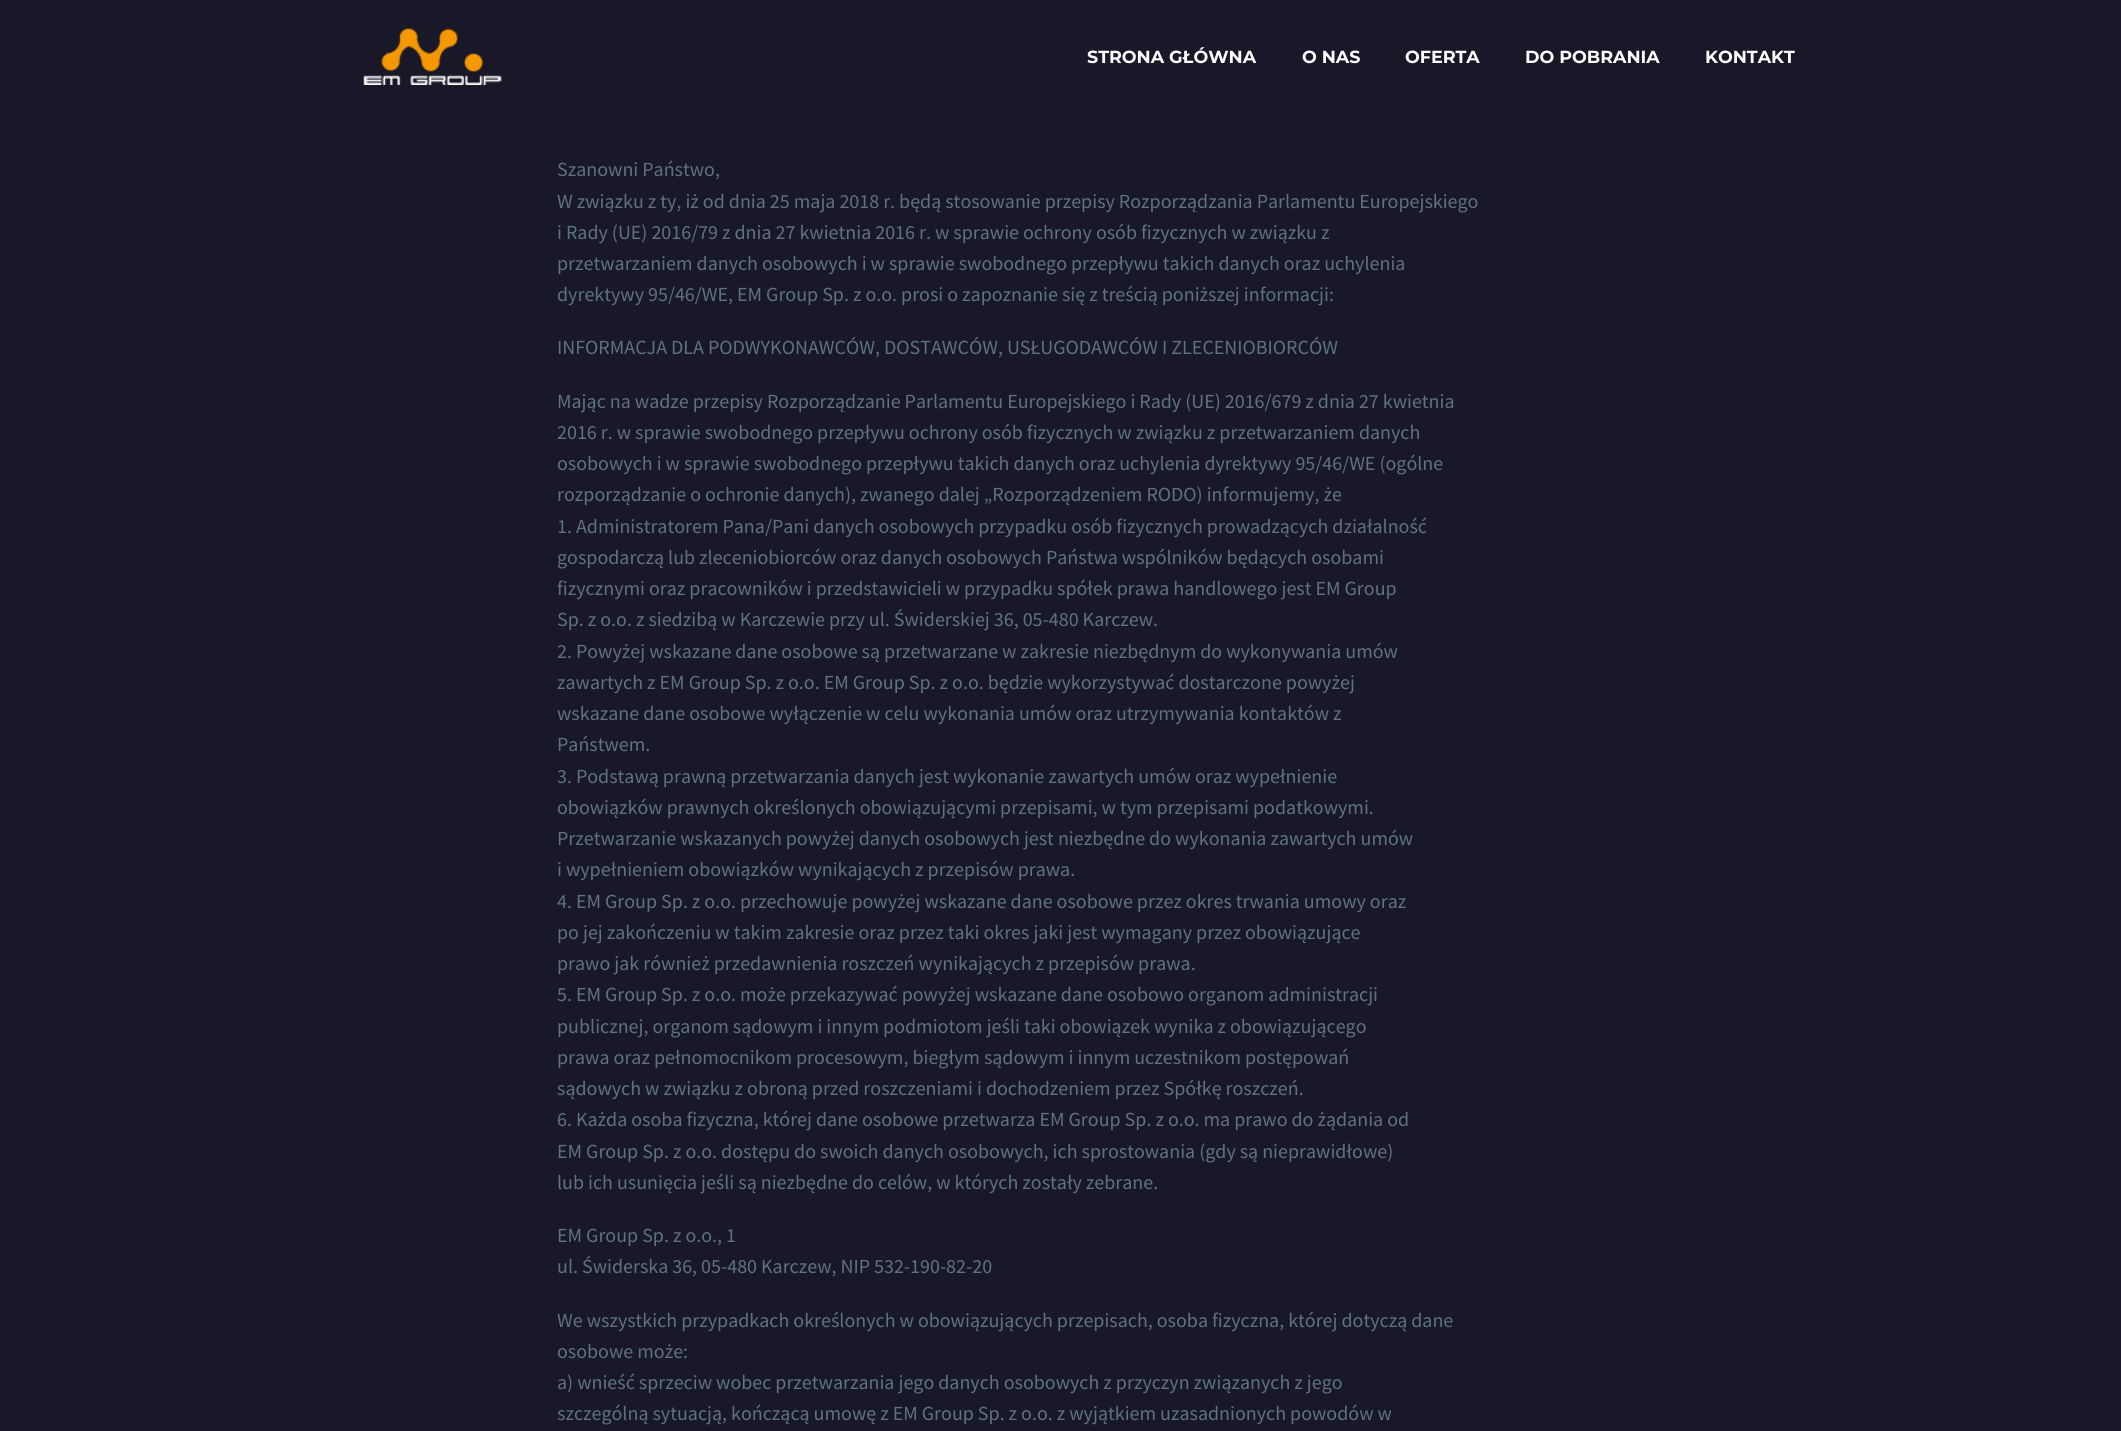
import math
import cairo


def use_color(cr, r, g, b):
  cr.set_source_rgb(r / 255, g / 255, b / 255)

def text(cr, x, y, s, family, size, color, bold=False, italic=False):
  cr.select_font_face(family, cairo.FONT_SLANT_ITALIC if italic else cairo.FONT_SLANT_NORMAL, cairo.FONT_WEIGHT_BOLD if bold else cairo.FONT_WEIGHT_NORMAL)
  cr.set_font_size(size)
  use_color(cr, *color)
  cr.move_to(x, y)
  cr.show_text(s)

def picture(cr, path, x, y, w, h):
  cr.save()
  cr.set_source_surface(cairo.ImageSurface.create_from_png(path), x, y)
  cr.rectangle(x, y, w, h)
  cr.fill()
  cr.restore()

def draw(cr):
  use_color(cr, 24, 24, 40)
  cr.paint()
  picture(cr, "img_01.png", 363, 28, 139, 57)
  text(cr, 1087, 63, "STRONA GŁÓWNA", "Montserrat", 17.5, (255, 255, 255), bold=True)
  text(cr, 1302, 63, "O NAS", "Montserrat", 17.5, (255, 255, 255), bold=True)
  text(cr, 1405, 63, "OFERTA", "Montserrat", 17.5, (255, 255, 255), bold=True)
  text(cr, 1525, 63, "DO POBRANIA", "Montserrat", 17.5, (255, 255, 255), bold=True)
  text(cr, 1705, 63, "KONTAKT", "Montserrat", 17.5, (255, 255, 255), bold=True)
  text(cr, 557, 176, "Szanowni Państwo,", "Source Sans Pro", 20, (95, 114, 127))
  text(cr, 557, 208, "W związku z ty, iż od dnia 25 maja 2018 r. będą stosowanie przepisy Rozporządzania Parlamentu Europejskiego", "Source Sans Pro", 20, (95, 114, 127))
  text(cr, 557, 239, "i Rady (UE) 2016/79 z dnia 27 kwietnia 2016 r. w sprawie ochrony osób fizycznych w związku z", "Source Sans Pro", 20, (95, 114, 127))
  text(cr, 557, 270, "przetwarzaniem danych osobowych i w sprawie swobodnego przepływu takich danych oraz uchylenia", "Source Sans Pro", 20, (95, 114, 127))
  text(cr, 557, 301, "dyrektywy 95/46/WE, EM Group Sp. z o.o. prosi o zapoznanie się z treścią poniższej informacji:", "Source Sans Pro", 20, (95, 114, 127))
  text(cr, 557, 354, "INFORMACJA DLA PODWYKONAWCÓW, DOSTAWCÓW, USŁUGODAWCÓW I ZLECENIOBIORCÓW", "Source Sans Pro", 20, (95, 114, 127))
  text(cr, 557, 408, "Mając na wadze przepisy Rozporządzanie Parlamentu Europejskiego i Rady (UE) 2016/679 z dnia 27 kwietnia", "Source Sans Pro", 20, (95, 114, 127))
  text(cr, 557, 439, "2016 r. w sprawie swobodnego przepływu ochrony osób fizycznych w związku z przetwarzaniem danych", "Source Sans Pro", 20, (95, 114, 127))
  text(cr, 557, 470, "osobowych i w sprawie swobodnego przepływu takich danych oraz uchylenia dyrektywy 95/46/WE (ogólne", "Source Sans Pro", 20, (95, 114, 127))
  text(cr, 557, 501, "rozporządzanie o ochronie danych), zwanego dalej „Rozporządzeniem RODO) informujemy, że", "Source Sans Pro", 20, (95, 114, 127))
  text(cr, 557, 533, "1. Administratorem Pana/Pani danych osobowych przypadku osób fizycznych prowadzących działalność", "Source Sans Pro", 20, (95, 114, 127))
  text(cr, 557, 564, "gospodarczą lub zleceniobiorców oraz danych osobowych Państwa wspólników będących osobami", "Source Sans Pro", 20, (95, 114, 127))
  text(cr, 557, 595, "fizycznymi oraz pracowników i przedstawicieli w przypadku spółek prawa handlowego jest EM Group", "Source Sans Pro", 20, (95, 114, 127))
  text(cr, 557, 626, "Sp. z o.o. z siedzibą w Karczewie przy ul. Świderskiej 36, 05-480 Karczew.", "Source Sans Pro", 20, (95, 114, 127))
  text(cr, 557, 658, "2. Powyżej wskazane dane osobowe są przetwarzane w zakresie niezbędnym do wykonywania umów", "Source Sans Pro", 20, (95, 114, 127))
  text(cr, 557, 689, "zawartych z EM Group Sp. z o.o. EM Group Sp. z o.o. będzie wykorzystywać dostarczone powyżej", "Source Sans Pro", 20, (95, 114, 127))
  text(cr, 557, 720, "wskazane dane osobowe wyłączenie w celu wykonania umów oraz utrzymywania kontaktów z", "Source Sans Pro", 20, (95, 114, 127))
  text(cr, 557, 751, "Państwem.", "Source Sans Pro", 20, (95, 114, 127))
  text(cr, 557, 783, "3. Podstawą prawną przetwarzania danych jest wykonanie zawartych umów oraz wypełnienie", "Source Sans Pro", 20, (95, 114, 127))
  text(cr, 557, 814, "obowiązków prawnych określonych obowiązującymi przepisami, w tym przepisami podatkowymi.", "Source Sans Pro", 20, (95, 114, 127))
  text(cr, 557, 845, "Przetwarzanie wskazanych powyżej danych osobowych jest niezbędne do wykonania zawartych umów", "Source Sans Pro", 20, (95, 114, 127))
  text(cr, 557, 876, "i wypełnieniem obowiązków wynikających z przepisów prawa.", "Source Sans Pro", 20, (95, 114, 127))
  text(cr, 557, 908, "4. EM Group Sp. z o.o. przechowuje powyżej wskazane dane osobowe przez okres trwania umowy oraz", "Source Sans Pro", 20, (95, 114, 127))
  text(cr, 557, 939, "po jej zakończeniu w takim zakresie oraz przez taki okres jaki jest wymagany przez obowiązujące", "Source Sans Pro", 20, (95, 114, 127))
  text(cr, 557, 970, "prawo jak również przedawnienia roszczeń wynikających z przepisów prawa.", "Source Sans Pro", 20, (95, 114, 127))
  text(cr, 557, 1001, "5. EM Group Sp. z o.o. może przekazywać powyżej wskazane dane osobowo organom administracji", "Source Sans Pro", 20, (95, 114, 127))
  text(cr, 557, 1033, "publicznej, organom sądowym i innym podmiotom jeśli taki obowiązek wynika z obowiązującego", "Source Sans Pro", 20, (95, 114, 127))
  text(cr, 557, 1064, "prawa oraz pełnomocnikom procesowym, biegłym sądowym i innym uczestnikom postępowań", "Source Sans Pro", 20, (95, 114, 127))
  text(cr, 557, 1095, "sądowych w związku z obroną przed roszczeniami i dochodzeniem przez Spółkę roszczeń.", "Source Sans Pro", 20, (95, 114, 127))
  text(cr, 557, 1126, "6. Każda osoba fizyczna, której dane osobowe przetwarza EM Group Sp. z o.o. ma prawo do żądania od", "Source Sans Pro", 20, (95, 114, 127))
  text(cr, 557, 1158, "EM Group Sp. z o.o. dostępu do swoich danych osobowych, ich sprostowania (gdy są nieprawidłowe)", "Source Sans Pro", 20, (95, 114, 127))
  text(cr, 557, 1189, "lub ich usunięcia jeśli są niezbędne do celów, w których zostały zebrane.", "Source Sans Pro", 20, (95, 114, 127))
  text(cr, 557, 1242, "EM Group Sp. z o.o., 1", "Source Sans Pro", 20, (95, 114, 127))
  text(cr, 557, 1273, "ul. Świderska 36, 05-480 Karczew, NIP 532-190-82-20", "Source Sans Pro", 20, (95, 114, 127))
  text(cr, 557, 1327, "We wszystkich przypadkach określonych w obowiązujących przepisach, osoba fizyczna, której dotyczą dane", "Source Sans Pro", 20, (95, 114, 127))
  text(cr, 557, 1358, "osobowe może:", "Source Sans Pro", 20, (95, 114, 127))
  text(cr, 557, 1389, "a) wnieść sprzeciw wobec przetwarzania jego danych osobowych z przyczyn związanych z jego", "Source Sans Pro", 20, (95, 114, 127))
  text(cr, 557, 1420, "szczególną sytuacją, kończącą umowę z EM Group Sp. z o.o. z wyjątkiem uzasadnionych powodów w", "Source Sans Pro", 20, (95, 114, 127))


surface = cairo.ImageSurface(cairo.FORMAT_RGB24, 2121, 1431)
cr = cairo.Context(surface)
options = cairo.FontOptions()
options.set_hint_metrics(cairo.HINT_METRICS_OFF)
options.set_hint_style(cairo.HINT_STYLE_NONE)
cr.set_font_options(options)
cr.set_miter_limit(4)
draw(cr)
surface.write_to_png("out.png")
